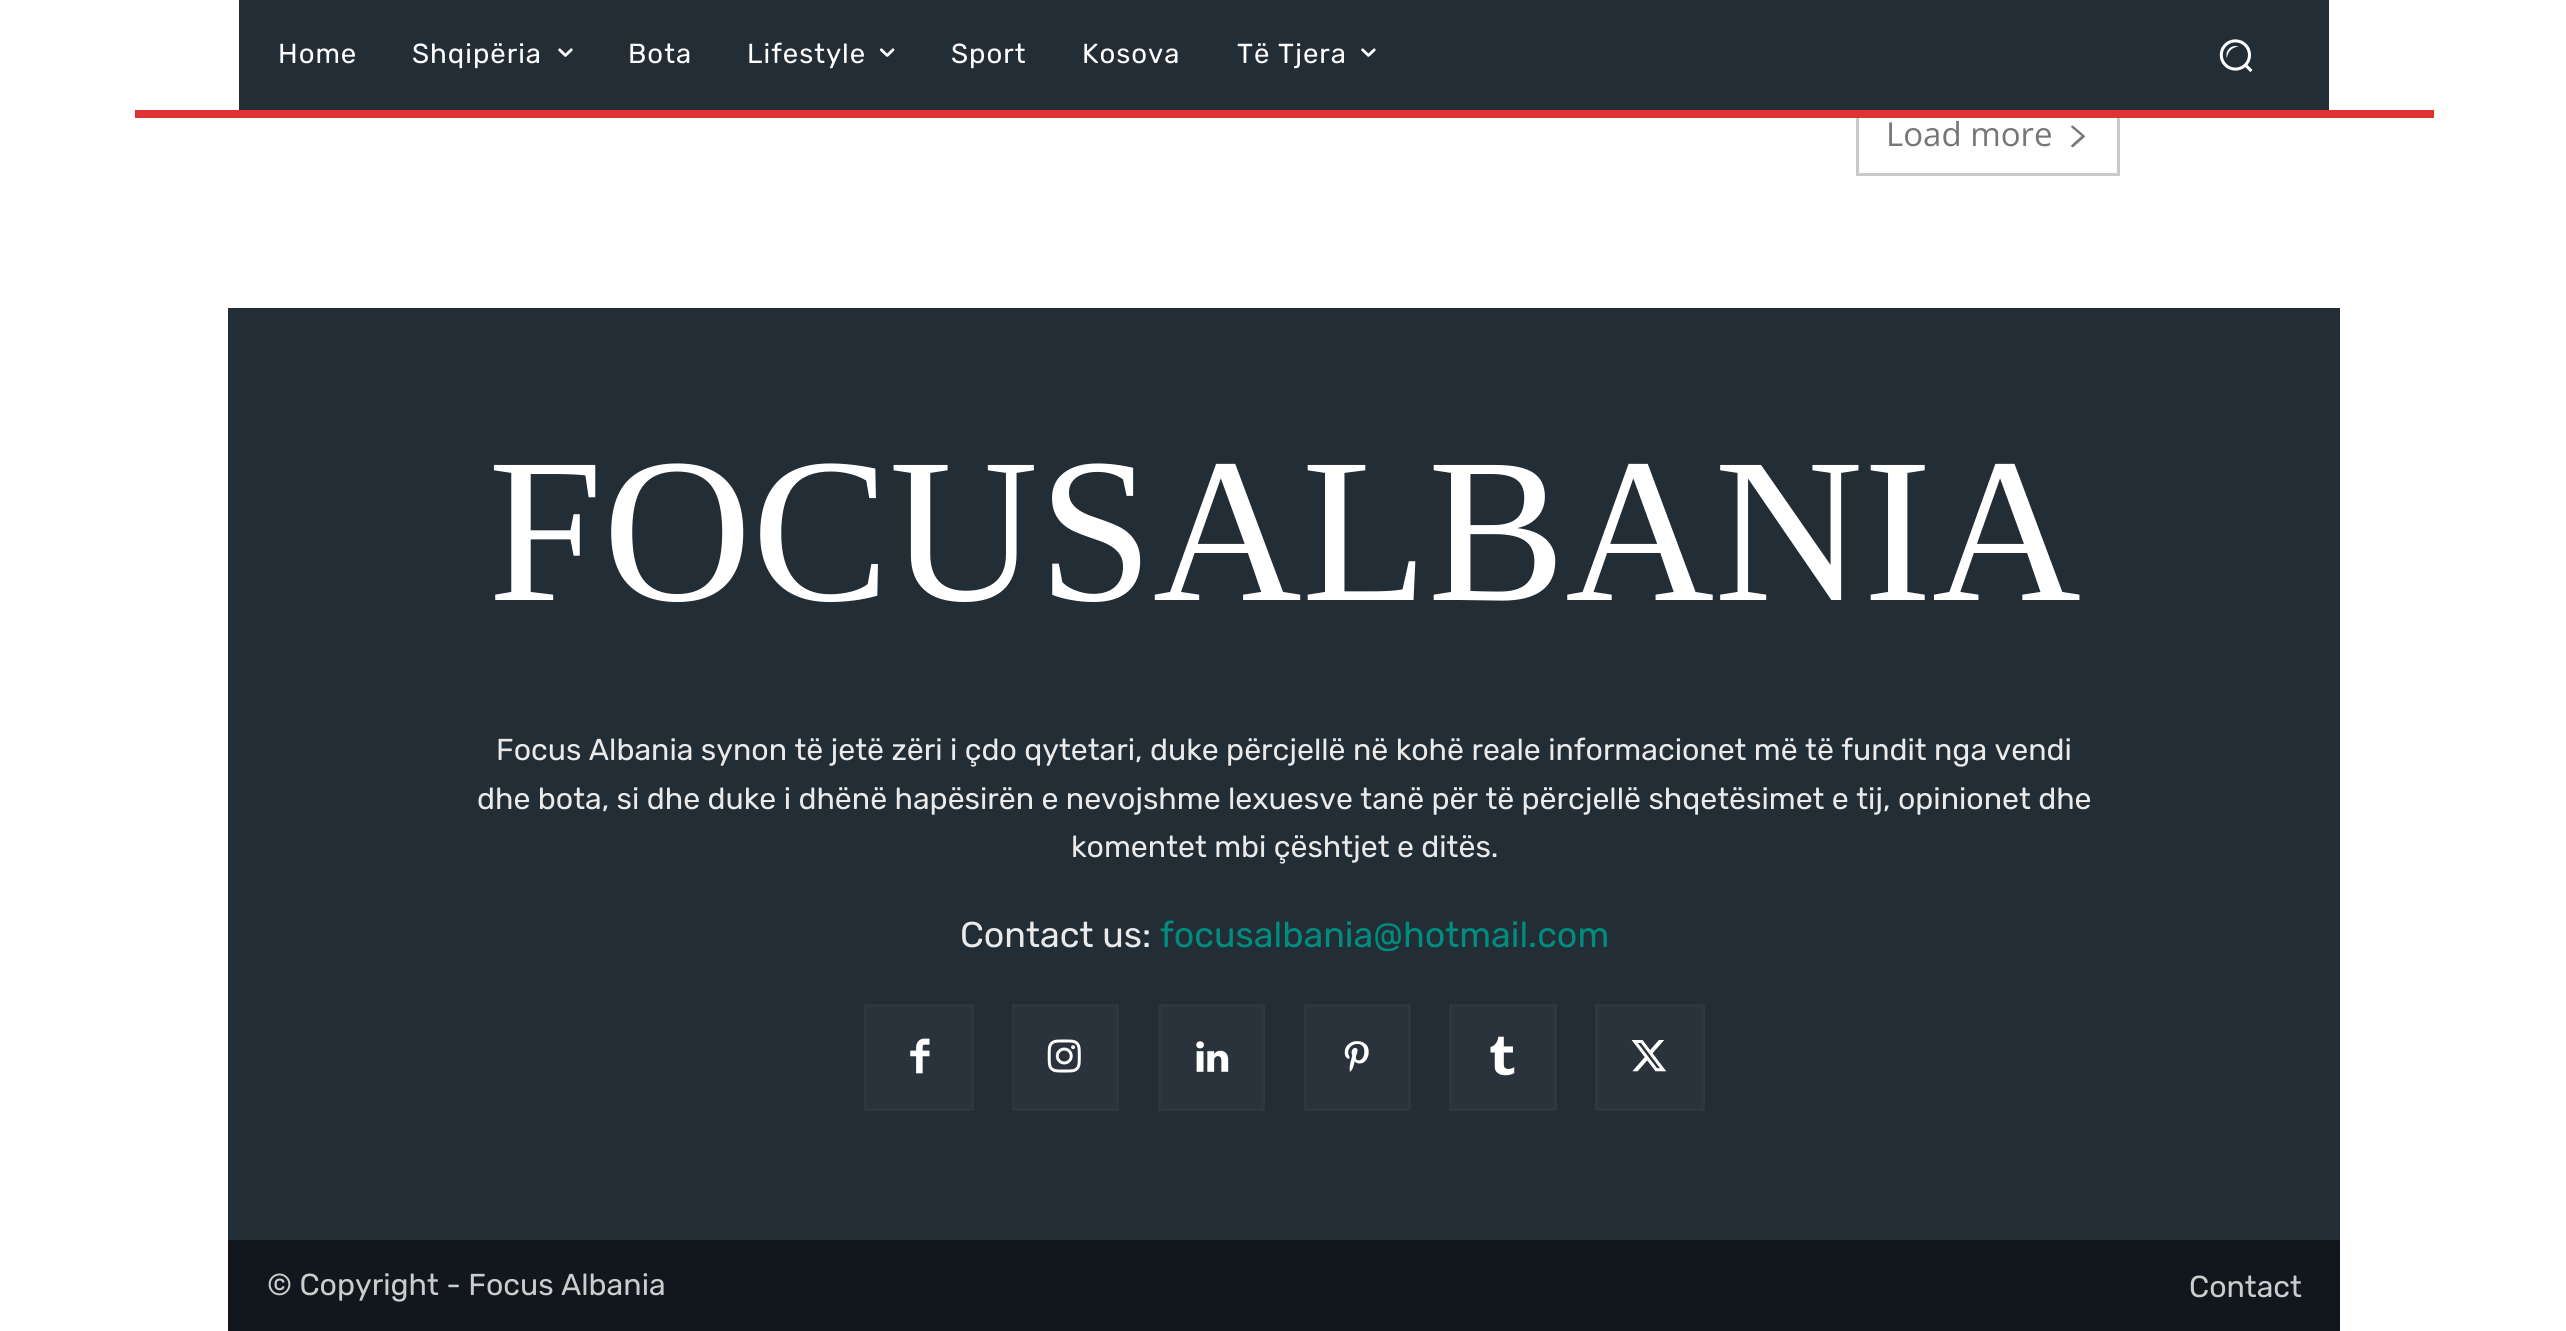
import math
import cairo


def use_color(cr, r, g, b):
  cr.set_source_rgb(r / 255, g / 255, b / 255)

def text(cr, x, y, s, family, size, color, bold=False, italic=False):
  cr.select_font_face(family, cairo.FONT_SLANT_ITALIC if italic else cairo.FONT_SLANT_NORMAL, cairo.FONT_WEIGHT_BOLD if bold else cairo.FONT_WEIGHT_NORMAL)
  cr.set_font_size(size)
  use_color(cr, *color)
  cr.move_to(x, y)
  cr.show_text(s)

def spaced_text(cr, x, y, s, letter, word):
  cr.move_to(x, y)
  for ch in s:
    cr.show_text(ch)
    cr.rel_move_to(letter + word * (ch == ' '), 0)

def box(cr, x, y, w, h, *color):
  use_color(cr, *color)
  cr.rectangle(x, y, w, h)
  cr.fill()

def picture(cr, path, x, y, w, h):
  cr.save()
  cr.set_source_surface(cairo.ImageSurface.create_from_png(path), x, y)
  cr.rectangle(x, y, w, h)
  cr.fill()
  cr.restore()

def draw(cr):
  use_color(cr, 255, 255, 255)
  cr.paint()
  cr.rectangle(1857.5, 95.5, 261, 79)
  use_color(cr, 201, 201, 201)
  cr.set_line_width(3)
  cr.stroke()
  box(cr, 239, 0, 2090, 110, 35, 45, 53)
  picture(cr, "img_01.png", 558, 48, 15, 9)
  picture(cr, "img_02.png", 880, 48, 15, 9)
  picture(cr, "img_01.png", 1361, 48, 15, 9)
  picture(cr, "img_03.png", 2219, 39, 34, 33)
  box(cr, 135, 110, 2299, 8, 221, 51, 51)
  picture(cr, "img_04.png", 2071, 125, 14, 23)
  box(cr, 228, 308, 2112, 932, 35, 45, 53)
  use_color(cr, 42, 51, 59)
  cr.rectangle(865.5, 1005.5, 107, 104)
  cr.fill_preserve()
  use_color(cr, 47, 54, 60)
  cr.stroke()
  picture(cr, "img_05.png", 910, 1038, 20, 36)
  use_color(cr, 42, 51, 59)
  cr.rectangle(1013.5, 1005.5, 104, 104)
  cr.fill_preserve()
  use_color(cr, 47, 54, 60)
  cr.stroke()
  picture(cr, "img_06.png", 1047, 1039, 34, 34)
  use_color(cr, 42, 51, 59)
  cr.rectangle(1159.5, 1005.5, 104, 104)
  cr.fill_preserve()
  use_color(cr, 47, 54, 60)
  cr.stroke()
  picture(cr, "img_07.png", 1196, 1041, 33, 31)
  use_color(cr, 42, 51, 59)
  cr.rectangle(1305.5, 1005.5, 104, 104)
  cr.fill_preserve()
  use_color(cr, 47, 54, 60)
  cr.stroke()
  picture(cr, "img_08.png", 1344, 1041, 25, 31)
  use_color(cr, 42, 51, 59)
  cr.rectangle(1450.5, 1005.5, 105, 104)
  cr.fill_preserve()
  use_color(cr, 47, 54, 60)
  cr.stroke()
  picture(cr, "img_09.png", 1490, 1036, 25, 40)
  use_color(cr, 42, 51, 59)
  cr.rectangle(1596.5, 1005.5, 107, 104)
  cr.fill_preserve()
  use_color(cr, 47, 54, 60)
  cr.stroke()
  picture(cr, "img_10.png", 1631, 1040, 36, 32)
  box(cr, 228, 1240, 2112, 91, 17, 23, 28)
  cr.select_font_face("Rubik")
  cr.set_font_size(27.5)
  use_color(cr, 255, 255, 255)
  spaced_text(cr, 278, 63, "Home", 1, 0)
  spaced_text(cr, 412, 63, "Shqipëria", 1, 0)
  spaced_text(cr, 628, 63, "Bota", 1, 0)
  spaced_text(cr, 747, 63, "Lifestyle", 1, 0)
  spaced_text(cr, 951, 63, "Sport", 1, 0)
  spaced_text(cr, 1082, 63, "Kosova", 1, 0)
  spaced_text(cr, 1237, 63, "Të Tjera", 1, 0)
  text(cr, 1886, 146, "Load more", "Open Sans", 33, (118, 118, 118))
  text(cr, 488, 600, "FOCUSALBANIA", "Liberation Serif", 206.25, (255, 255, 255))
  text(cr, 496, 760, "Focus Albania synon të jetë zëri i çdo qytetari, duke përcjellë në kohë reale informacionet më të fundit nga vendi", "Rubik", 30.25, (234, 234, 234))
  text(cr, 477, 809, "dhe bota, si dhe duke i dhënë hapësirën e nevojshme lexuesve tanë për të përcjellë shqetësimet e tij, opinionet dhe", "Rubik", 30.25, (234, 234, 234))
  text(cr, 1071, 857, "komentet mbi çështjet e ditës.", "Rubik", 30.25, (234, 234, 234))
  text(cr, 960, 947, "Contact us:", "Rubik", 35.75, (234, 234, 234))
  text(cr, 1160, 947, "focusalbania@hotmail.com", "Rubik", 35.75, (0, 141, 127))
  text(cr, 267, 1295, "© Copyright - Focus Albania", "Rubik", 30.25, (204, 204, 204))
  text(cr, 2189, 1297, "Contact", "Rubik", 30.25, (204, 204, 204))


surface = cairo.ImageSurface(cairo.FORMAT_RGB24, 2566, 1331)
cr = cairo.Context(surface)
options = cairo.FontOptions()
options.set_hint_metrics(cairo.HINT_METRICS_OFF)
options.set_hint_style(cairo.HINT_STYLE_NONE)
cr.set_font_options(options)
cr.set_miter_limit(4)
draw(cr)
surface.write_to_png("out.png")
